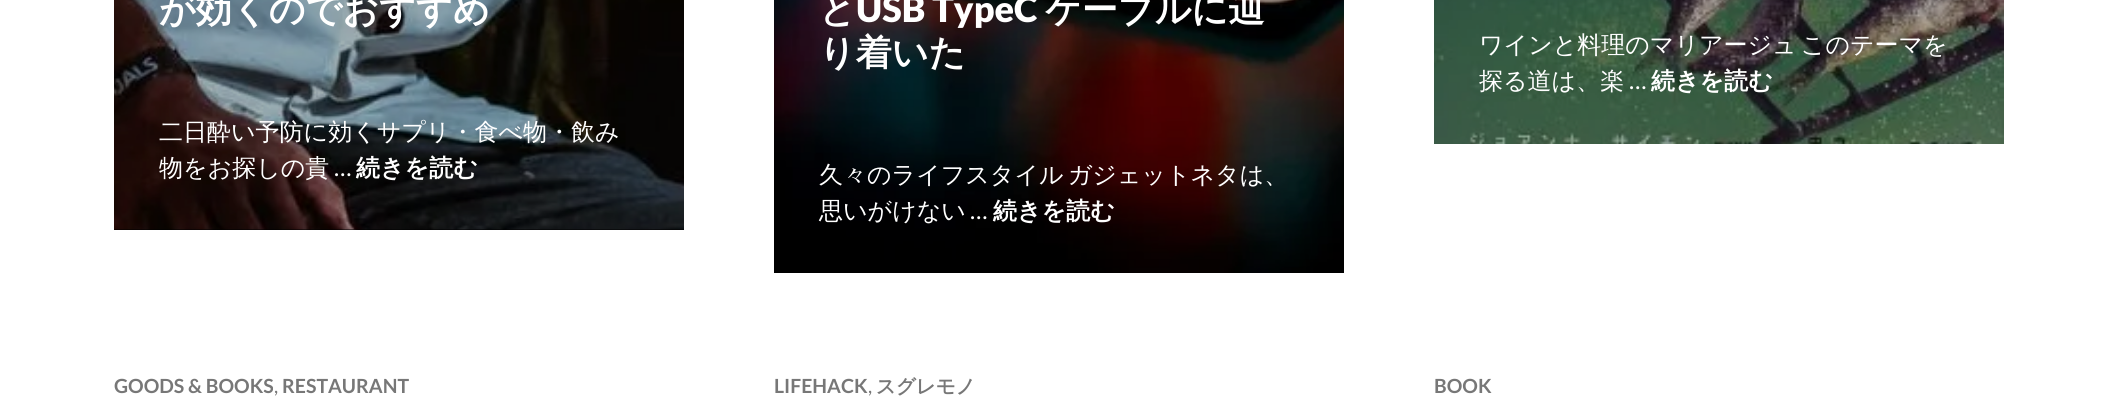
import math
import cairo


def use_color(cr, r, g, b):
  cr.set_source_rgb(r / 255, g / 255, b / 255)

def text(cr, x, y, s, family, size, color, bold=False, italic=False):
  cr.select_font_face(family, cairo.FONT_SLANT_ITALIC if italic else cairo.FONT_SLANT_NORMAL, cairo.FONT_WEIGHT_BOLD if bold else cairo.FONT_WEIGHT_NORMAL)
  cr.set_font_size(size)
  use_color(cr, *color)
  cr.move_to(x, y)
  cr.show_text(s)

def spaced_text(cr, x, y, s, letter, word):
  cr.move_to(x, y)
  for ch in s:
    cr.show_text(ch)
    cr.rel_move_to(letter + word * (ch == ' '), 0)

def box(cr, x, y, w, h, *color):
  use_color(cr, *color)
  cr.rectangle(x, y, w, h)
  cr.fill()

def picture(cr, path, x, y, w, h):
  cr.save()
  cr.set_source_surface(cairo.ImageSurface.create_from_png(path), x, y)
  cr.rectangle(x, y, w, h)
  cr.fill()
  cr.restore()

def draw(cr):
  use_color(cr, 255, 255, 255)
  cr.paint()
  box(cr, 114, 229, 570, 1, 0, 0, 0)
  picture(cr, "img_01.png", 114, 0, 570, 230)
  picture(cr, "img_02.png", 774, 0, 570, 273)
  picture(cr, "img_03.png", 1434, 0, 570, 144)
  text(cr, 159, 22, "が効くのでおすすめ", "WenQuanYi Zen Hei", 36, (255, 255, 255), bold=True)
  text(cr, 159, 140, "二日酔い予防に効くサプリ・食べ物・飲み", "WenQuanYi Zen Hei Medium", 24, (255, 255, 255))
  text(cr, 159, 176, "物をお探しの貴", "WenQuanYi Zen Hei Medium", 24, (255, 255, 255))
  text(cr, 334, 176, "…", "Lato", 24, (255, 255, 255))
  text(cr, 356, 176, "続きを読む", "WenQuanYi Zen Hei", 24, (255, 255, 255), bold=True)
  text(cr, 819, 22, "と", "WenQuanYi Zen Hei", 36, (255, 255, 255), bold=True)
  text(cr, 856, 22, "USB TypeC", "Lato Black", 36, (255, 255, 255))
  text(cr, 1045, 22, "ケーブルに辿", "WenQuanYi Zen Hei", 36, (255, 255, 255), bold=True)
  text(cr, 819, 65, "り着いた", "WenQuanYi Zen Hei", 36, (255, 255, 255), bold=True)
  cr.select_font_face("WenQuanYi Zen Hei Medium")
  cr.set_font_size(24)
  spaced_text(cr, 819, 183, "久々のライフスタイル ガジェットネタは、", 0, -3)
  text(cr, 819, 219, "思いがけない", "WenQuanYi Zen Hei Medium", 24, (255, 255, 255))
  text(cr, 970, 219, "…", "Lato", 24, (255, 255, 255))
  text(cr, 993, 219, "続きを読む", "WenQuanYi Zen Hei", 24, (255, 255, 255), bold=True)
  cr.select_font_face("WenQuanYi Zen Hei Medium")
  spaced_text(cr, 1479, 53, "ワインと料理のマリアージュ このテーマを", 0, -3)
  text(cr, 1479, 89, "探る道は、楽", "WenQuanYi Zen Hei Medium", 24, (255, 255, 255))
  text(cr, 1629, 89, "…", "Lato", 24, (255, 255, 255))
  text(cr, 1651, 89, "続きを読む", "WenQuanYi Zen Hei", 24, (255, 255, 255), bold=True)
  text(cr, 114, 393, "GOODS & BOOKS", "Lato", 19.5, (119, 119, 119), bold=True)
  text(cr, 274, 393, ",", "Lato", 19.5, (119, 119, 119))
  text(cr, 282, 393, "RESTAURANT", "Lato", 19.5, (119, 119, 119), bold=True)
  text(cr, 774, 393, "LIFEHACK", "Lato", 19.5, (119, 119, 119), bold=True)
  text(cr, 868, 393, ",", "Lato", 19.5, (119, 119, 119))
  text(cr, 876, 393, "スグレモノ", "WenQuanYi Zen Hei", 19.5, (119, 119, 119), bold=True)
  text(cr, 1434, 393, "BOOK", "Lato", 19.5, (119, 119, 119), bold=True)


surface = cairo.ImageSurface(cairo.FORMAT_RGB24, 2117, 400)
cr = cairo.Context(surface)
options = cairo.FontOptions()
options.set_hint_metrics(cairo.HINT_METRICS_OFF)
options.set_hint_style(cairo.HINT_STYLE_NONE)
cr.set_font_options(options)
cr.set_miter_limit(4)
draw(cr)
surface.write_to_png("out.png")
